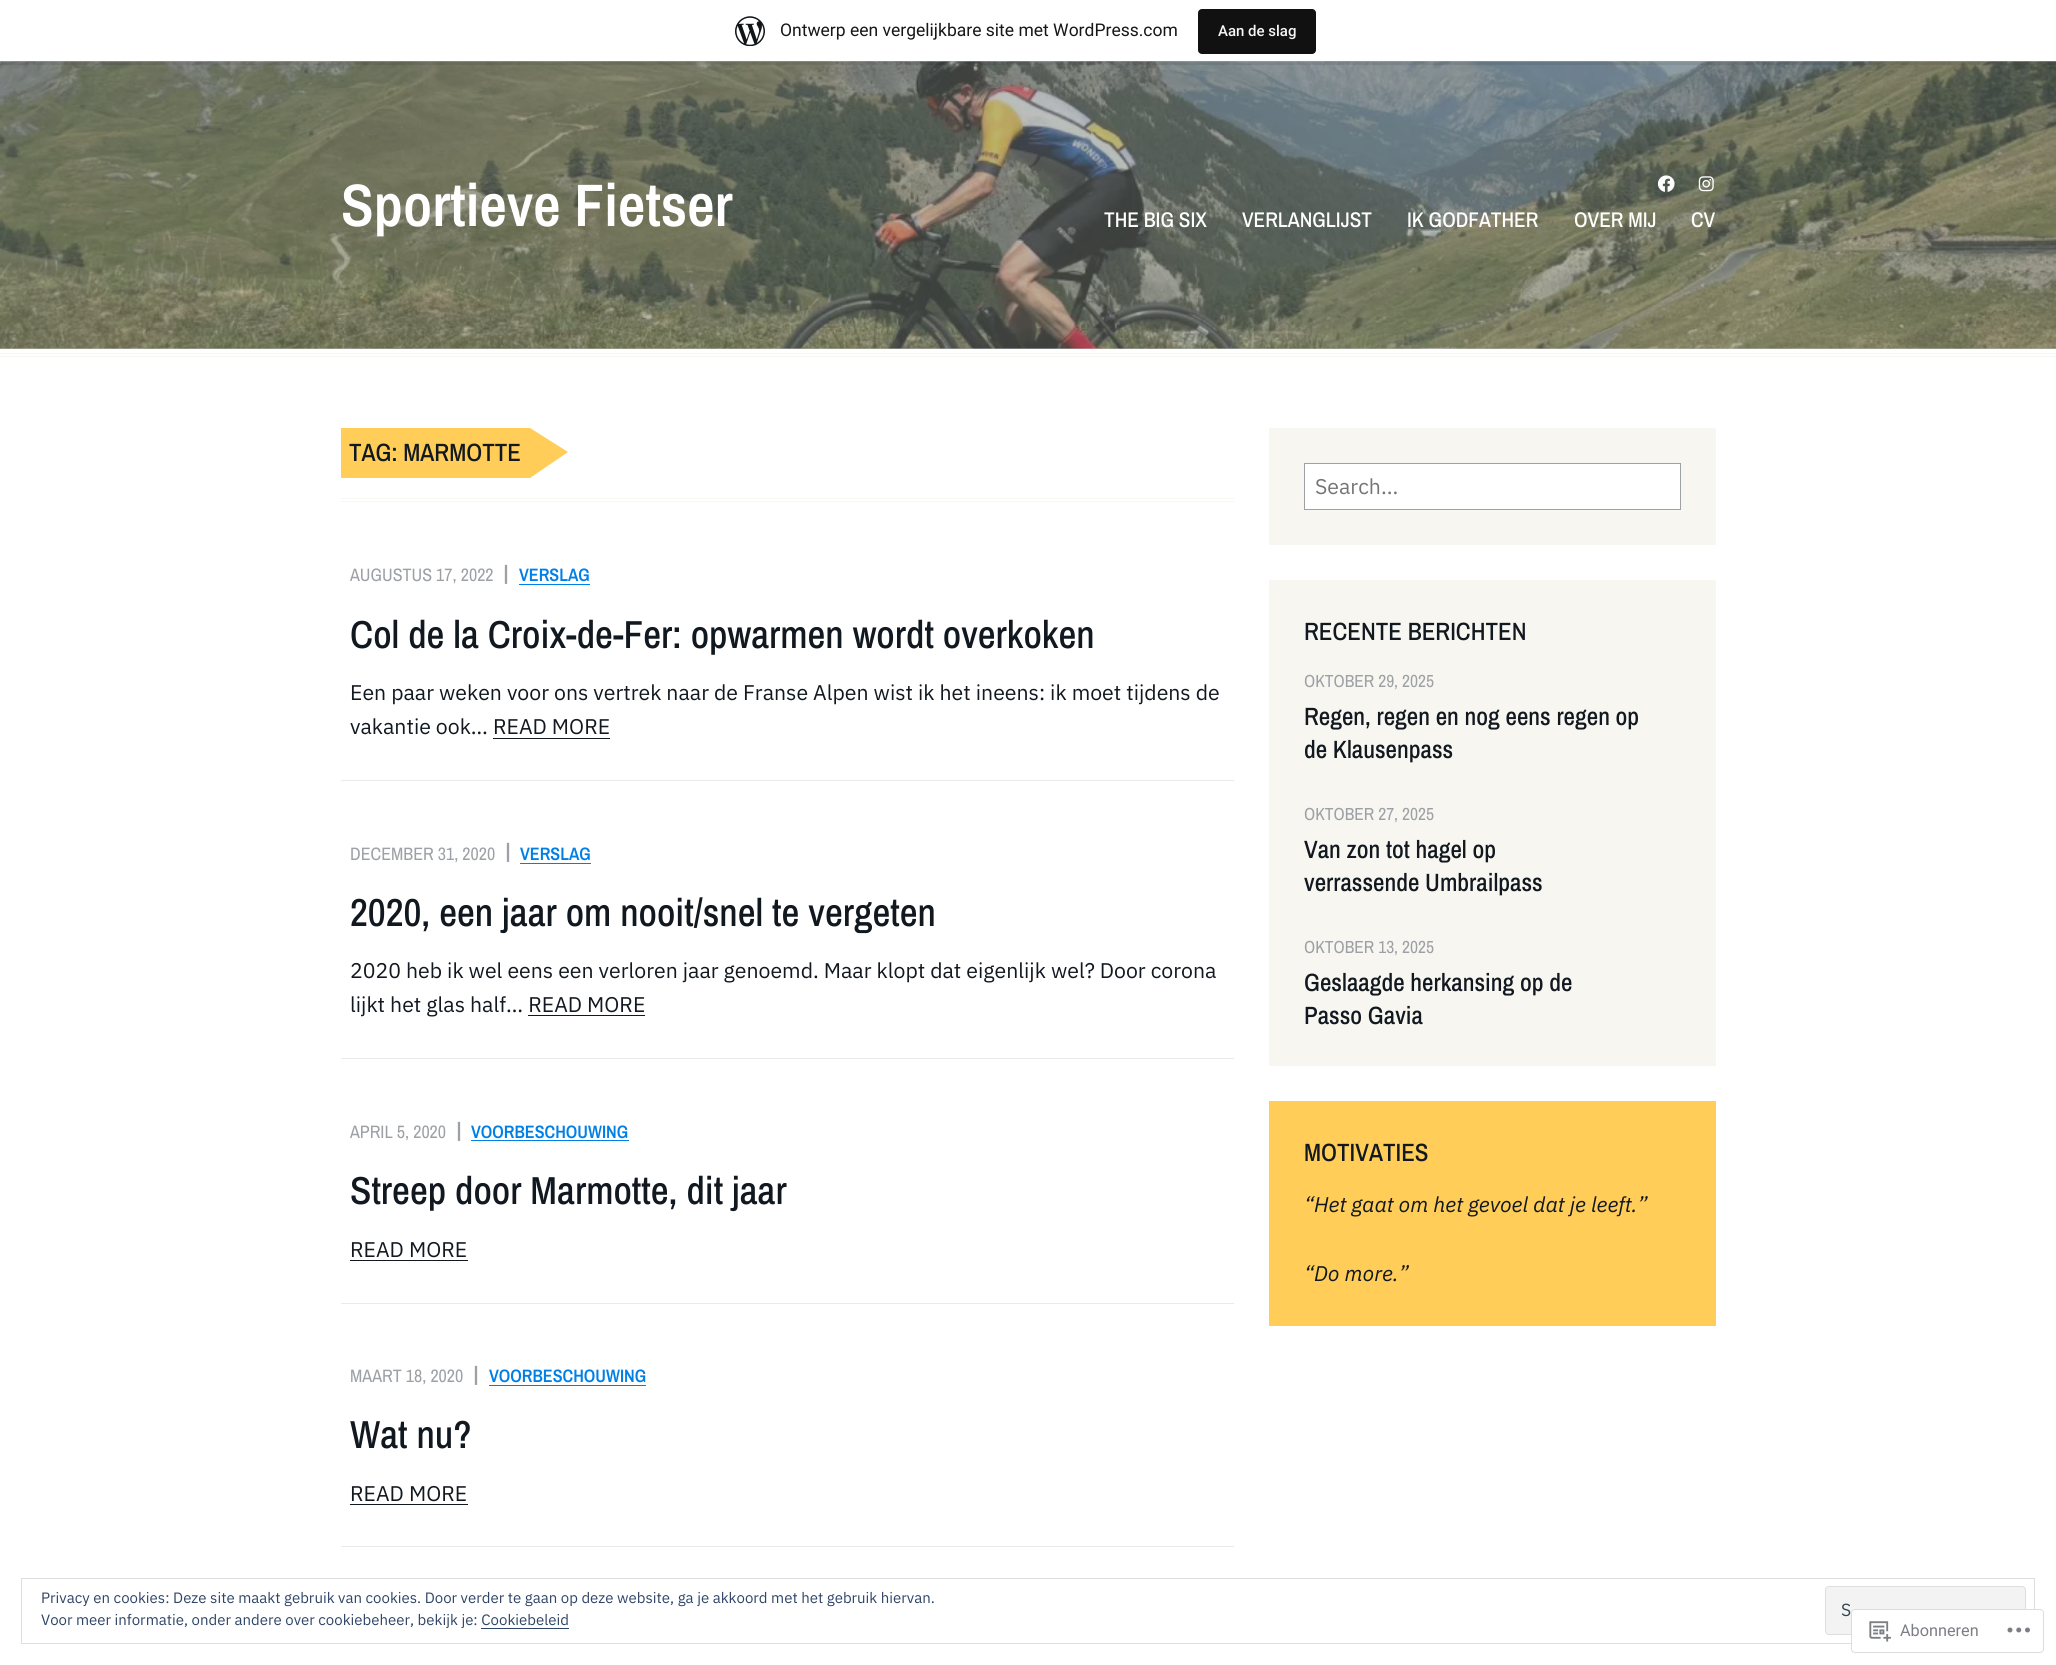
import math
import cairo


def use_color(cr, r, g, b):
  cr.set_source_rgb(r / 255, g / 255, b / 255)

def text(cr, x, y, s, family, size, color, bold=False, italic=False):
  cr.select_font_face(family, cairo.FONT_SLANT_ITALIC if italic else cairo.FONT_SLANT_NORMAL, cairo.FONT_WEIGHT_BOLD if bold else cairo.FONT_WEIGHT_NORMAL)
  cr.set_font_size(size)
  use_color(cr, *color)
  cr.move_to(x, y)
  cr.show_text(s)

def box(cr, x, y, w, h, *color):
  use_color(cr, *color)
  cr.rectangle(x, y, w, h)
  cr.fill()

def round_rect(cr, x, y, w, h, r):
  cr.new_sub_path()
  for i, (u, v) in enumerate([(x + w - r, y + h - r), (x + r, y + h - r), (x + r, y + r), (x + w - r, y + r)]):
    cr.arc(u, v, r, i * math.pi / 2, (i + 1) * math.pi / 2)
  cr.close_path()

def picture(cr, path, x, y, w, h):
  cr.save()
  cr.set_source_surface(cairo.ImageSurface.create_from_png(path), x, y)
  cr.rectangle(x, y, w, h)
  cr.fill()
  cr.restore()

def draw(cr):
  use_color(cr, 255, 255, 255)
  cr.paint()
  box(cr, 0, 61, 2056, 288, 188, 191, 188)
  picture(cr, "img_02.png", 0, 61, 2056, 288)
  cr.set_source_rgba(0, 0, 0, 0.08)
  cr.new_path()
  cr.move_to(1, 61)
  cr.line_to(1, 65)
  cr.line_to(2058, 65)
  cr.line_to(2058, 4)
  cr.line_to(2056, 4)
  cr.line_to(2056, 61)
  cr.close_path()
  cr.fill()
  picture(cr, "img_01.png", 735, 16, 30, 30)
  use_color(cr, 17, 17, 17)
  round_rect(cr, 1198, 9, 118, 45, 4)
  cr.fill()
  picture(cr, "img_03.png", 1657, 175, 18, 17)
  picture(cr, "img_04.png", 1698, 176, 16, 16)
  box(cr, 0, 353, 2056, 1, 247, 246, 241)
  box(cr, 0, 356, 2056, 1, 247, 246, 241)
  box(cr, 341, 428, 189, 50, 255, 205, 88)
  cr.new_path()
  cr.move_to(530, 478)
  cr.line_to(530, 428)
  cr.line_to(568, 452)
  cr.close_path()
  cr.fill()
  box(cr, 341, 498, 893, 1, 247, 246, 241)
  box(cr, 341, 501, 893, 1, 247, 246, 241)
  box(cr, 341, 780, 893, 1, 232, 235, 238)
  box(cr, 519, 584, 71, 1, 0, 127, 230)
  box(cr, 493, 738, 117, 1, 17, 24, 31)
  box(cr, 341, 1058, 893, 1, 232, 235, 238)
  box(cr, 520, 863, 71, 1, 0, 127, 230)
  box(cr, 528, 1015, 117, 1, 17, 24, 31)
  box(cr, 341, 1303, 893, 1, 232, 235, 238)
  box(cr, 471, 1140, 158, 1, 0, 127, 230)
  box(cr, 350, 1260, 118, 1, 17, 24, 31)
  box(cr, 341, 1546, 893, 1, 232, 235, 238)
  box(cr, 489, 1385, 157, 1, 0, 127, 230)
  box(cr, 350, 1504, 118, 1, 17, 24, 31)
  box(cr, 1269, 428, 447, 117, 247, 246, 241)
  use_color(cr, 255, 255, 255)
  cr.rectangle(1304.5, 463.5, 376, 46)
  cr.fill_preserve()
  use_color(cr, 157, 161, 165)
  cr.set_line_width(1)
  cr.stroke()
  box(cr, 1269, 580, 447, 486, 247, 246, 241)
  box(cr, 1269, 1101, 447, 225, 255, 205, 88)
  cr.rectangle(21.5, 1578.5, 2013, 65)
  use_color(cr, 222, 222, 222)
  cr.stroke()
  use_color(cr, 243, 243, 243)
  round_rect(cr, 1825.5, 1586.5, 200, 48, 3.5)
  cr.fill_preserve()
  use_color(cr, 222, 222, 222)
  cr.stroke()
  box(cr, 481, 1628, 88, 1, 46, 68, 103)
  cr.set_source_rgba(1, 1, 1, 0.98)
  round_rect(cr, 1851, 1609, 193, 44, 4)
  cr.fill()
  round_rect(cr, 1851.5, 1609.5, 192, 43, 3.5)
  cr.set_source_rgba(0.863, 0.863, 0.871, 0.98)
  cr.stroke()
  picture(cr, "img_05.png", 1869, 1621, 22, 21)
  picture(cr, "img_06.png", 2007, 1627, 23, 6)
  text(cr, 780, 36, "Ontwerp een vergelijkbare site met WordPress.com", "Roboto", 17.5, (23, 23, 23))
  text(cr, 1218, 36, "Aan de slag", "Roboto Medium", 15, (246, 247, 247))
  text(cr, 341, 226, "Sportieve Fietser", "Archivo Narrow SemiBold", 60, (255, 255, 255))
  text(cr, 1104, 227, "THE BIG SIX", "Archivo Narrow Medium", 21.25, (255, 255, 255))
  text(cr, 1242, 227, "VERLANGLIJST", "Archivo Narrow Medium", 21.25, (255, 255, 255))
  text(cr, 1407, 227, "IK GODFATHER", "Archivo Narrow Medium", 21.25, (255, 255, 255))
  text(cr, 1574, 227, "OVER MIJ", "Archivo Narrow Medium", 21.25, (255, 255, 255))
  text(cr, 1691, 227, "CV", "Archivo Narrow Medium", 21.25, (255, 255, 255))
  text(cr, 349, 461, "TAG: MARMOTTE", "Archivo Narrow Medium", 25, (17, 24, 31))
  text(cr, 350, 581, "AUGUSTUS 17, 2022", "Archivo Narrow", 18, (157, 161, 165))
  text(cr, 502, 581, "|", "IBM Plex Sans SemiBold", 21.25, (157, 161, 165))
  text(cr, 519, 581, "VERSLAG", "Archivo Narrow SemiBold", 18, (0, 127, 230))
  text(cr, 350, 648, "Col de la Croix-de-Fer: opwarmen wordt overkoken", "Archivo Narrow Medium", 39.1, (17, 24, 31))
  text(cr, 350, 700, "Een paar weken voor ons vertrek naar de Franse Alpen wist ik het ineens: ik moet tijdens de", "IBM Plex Sans", 21.25, (17, 24, 31))
  text(cr, 350, 734, "vakantie ook… READ MORE", "IBM Plex Sans", 21.25, (17, 24, 31))
  text(cr, 350, 860, "DECEMBER 31, 2020", "Archivo Narrow", 18, (157, 161, 165))
  text(cr, 504, 859, "|", "IBM Plex Sans SemiBold", 21.25, (157, 161, 165))
  text(cr, 520, 860, "VERSLAG", "Archivo Narrow SemiBold", 18, (0, 127, 230))
  text(cr, 350, 926, "2020, een jaar om nooit/snel te vergeten", "Archivo Narrow Medium", 39.1, (17, 24, 31))
  text(cr, 350, 978, "2020 heb ik wel eens een verloren jaar genoemd. Maar klopt dat eigenlijk wel? Door corona", "IBM Plex Sans", 21.25, (17, 24, 31))
  text(cr, 350, 1012, "lijkt het glas half… READ MORE", "IBM Plex Sans", 21.25, (17, 24, 31))
  text(cr, 350, 1138, "APRIL 5, 2020", "Archivo Narrow", 18, (157, 161, 165))
  text(cr, 455, 1138, "|", "IBM Plex Sans SemiBold", 21.25, (157, 161, 165))
  text(cr, 471, 1138, "VOORBESCHOUWING", "Archivo Narrow SemiBold", 18, (0, 127, 230))
  text(cr, 350, 1204, "Streep door Marmotte, dit jaar", "Archivo Narrow Medium", 39.1, (17, 24, 31))
  text(cr, 350, 1257, "READ MORE", "IBM Plex Sans", 21.25, (17, 24, 31))
  text(cr, 350, 1382, "MAART 18, 2020", "Archivo Narrow", 18, (157, 161, 165))
  text(cr, 472, 1382, "|", "IBM Plex Sans SemiBold", 21.25, (157, 161, 165))
  text(cr, 489, 1382, "VOORBESCHOUWING", "Archivo Narrow SemiBold", 18, (0, 127, 230))
  text(cr, 350, 1448, "Wat nu?", "Archivo Narrow Medium", 39.1, (17, 24, 31))
  text(cr, 350, 1501, "READ MORE", "IBM Plex Sans", 21.25, (17, 24, 31))
  text(cr, 1315, 494, "Search...", "IBM Plex Sans", 21.25, (117, 117, 117))
  text(cr, 1304, 640, "RECENTE BERICHTEN", "Archivo Narrow Medium", 25, (17, 24, 31))
  text(cr, 1304, 687, "OKTOBER 29, 2025", "Archivo Narrow", 17.5, (157, 161, 165))
  text(cr, 1304, 725, "Regen, regen en nog eens regen op", "Archivo Narrow Medium", 25, (17, 24, 31))
  text(cr, 1304, 758, "de Klausenpass", "Archivo Narrow Medium", 25, (17, 24, 31))
  text(cr, 1304, 820, "OKTOBER 27, 2025", "Archivo Narrow", 17.5, (157, 161, 165))
  text(cr, 1304, 858, "Van zon tot hagel op", "Archivo Narrow Medium", 25, (17, 24, 31))
  text(cr, 1304, 891, "verrassende Umbrailpass", "Archivo Narrow Medium", 25, (17, 24, 31))
  text(cr, 1304, 953, "OKTOBER 13, 2025", "Archivo Narrow", 17.5, (157, 161, 165))
  text(cr, 1304, 991, "Geslaagde herkansing op de", "Archivo Narrow Medium", 25, (17, 24, 31))
  text(cr, 1304, 1024, "Passo Gavia", "Archivo Narrow Medium", 25, (17, 24, 31))
  text(cr, 1304, 1161, "MOTIVATIES", "Archivo Narrow Medium", 25, (17, 24, 31))
  text(cr, 1304, 1212, "“Het gaat om het gevoel dat je leeft.”", "IBM Plex Sans", 21.25, (17, 24, 31), italic=True)
  text(cr, 1304, 1281, "“Do more.”", "IBM Plex Sans", 21.25, (17, 24, 31), italic=True)
  text(cr, 41, 1603, "Privacy en cookies: Deze site maakt gebruik van cookies. Door verder te gaan op deze website, ga je akkoord met het gebruik hiervan.", "IBM Plex Sans", 15, (46, 68, 103))
  text(cr, 1841, 1616, "S", "IBM Plex Sans", 17.5, (46, 68, 83))
  text(cr, 41, 1625, "Voor meer informatie, onder andere over cookiebeheer, bekijk je: Cookiebeleid", "IBM Plex Sans", 15, (46, 68, 103))
  text(cr, 1900, 1636, "Abonneren", "Roboto", 16.25, (123, 127, 132))


surface = cairo.ImageSurface(cairo.FORMAT_RGB24, 2056, 1665)
cr = cairo.Context(surface)
options = cairo.FontOptions()
options.set_hint_metrics(cairo.HINT_METRICS_OFF)
options.set_hint_style(cairo.HINT_STYLE_NONE)
cr.set_font_options(options)
cr.set_miter_limit(4)
draw(cr)
surface.write_to_png("out.png")
